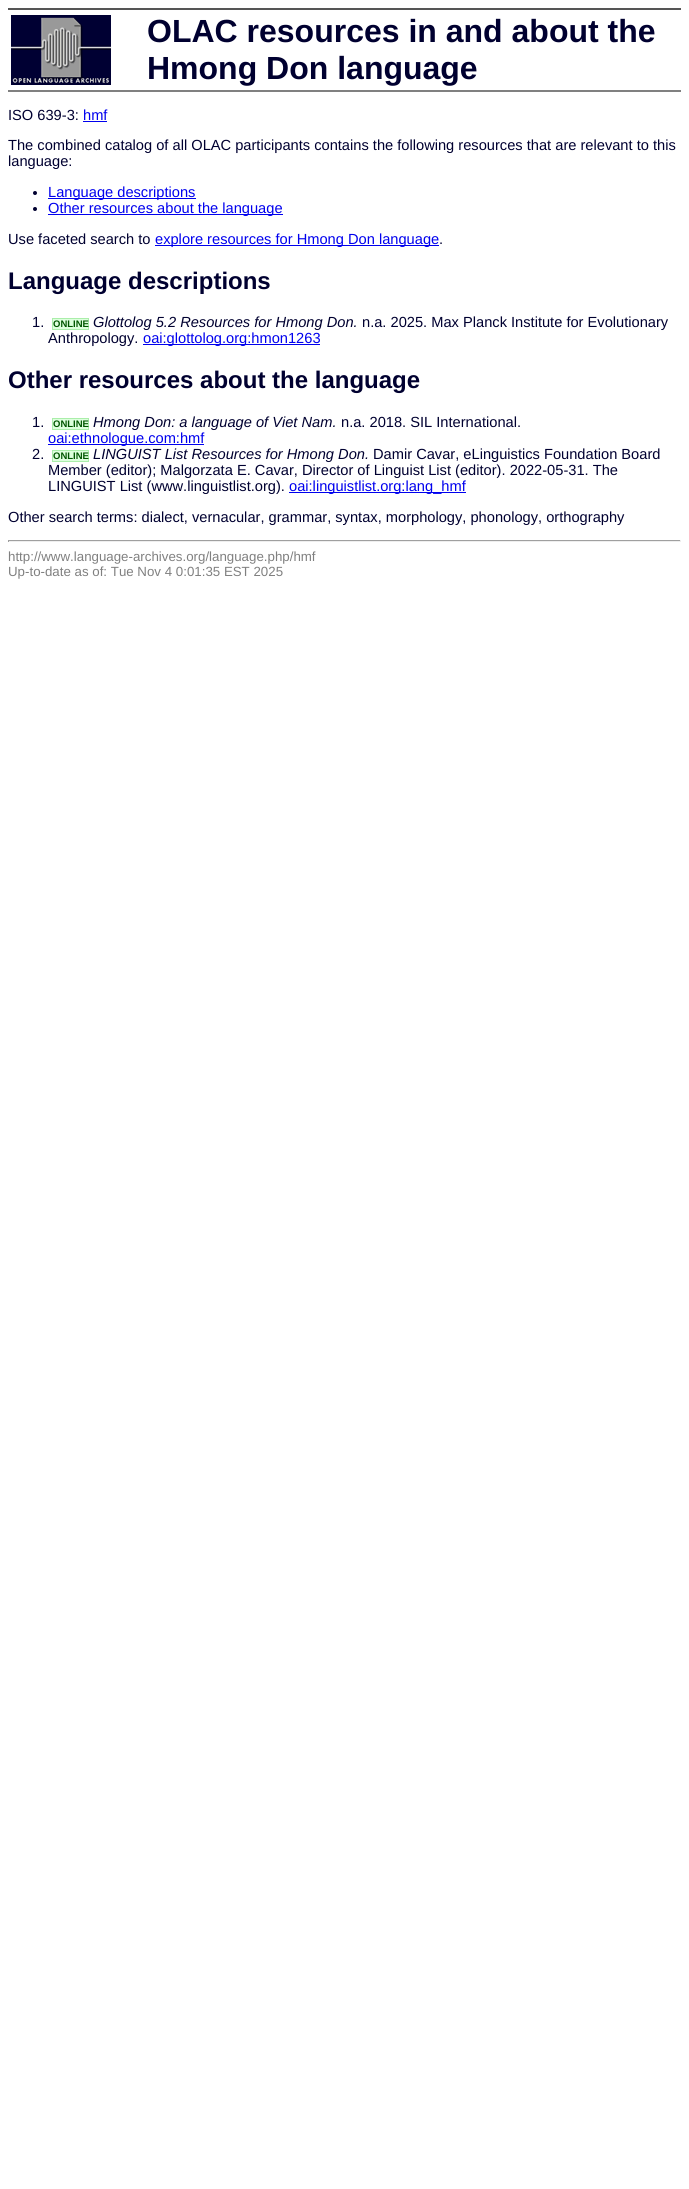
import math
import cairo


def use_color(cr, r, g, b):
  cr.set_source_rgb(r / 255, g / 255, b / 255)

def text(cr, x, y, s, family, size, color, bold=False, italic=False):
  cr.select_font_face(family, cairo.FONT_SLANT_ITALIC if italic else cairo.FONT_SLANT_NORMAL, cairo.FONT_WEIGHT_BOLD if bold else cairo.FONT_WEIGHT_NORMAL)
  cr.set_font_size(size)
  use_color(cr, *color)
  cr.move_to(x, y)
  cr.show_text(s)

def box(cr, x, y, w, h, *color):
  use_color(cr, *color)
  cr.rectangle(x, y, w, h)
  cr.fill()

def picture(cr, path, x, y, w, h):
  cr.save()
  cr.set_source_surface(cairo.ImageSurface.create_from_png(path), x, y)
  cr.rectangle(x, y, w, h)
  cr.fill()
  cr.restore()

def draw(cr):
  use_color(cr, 255, 255, 255)
  cr.paint()
  box(cr, 8, 8, 673, 2, 85, 85, 85)
  box(cr, 8, 90, 673, 2, 128, 128, 128)
  picture(cr, "img_01.png", 11, 15, 100, 70)
  box(cr, 83, 121, 24, 1, 0, 0, 238)
  use_color(cr, 0, 0, 48)
  cr.arc(35, 193, 2, 0, 2 * math.pi)
  cr.fill()
  box(cr, 48, 198, 148, 1, 0, 0, 238)
  use_color(cr, 0, 0, 48)
  cr.arc(35, 209, 2, 0, 2 * math.pi)
  cr.fill()
  box(cr, 48, 214, 235, 1, 0, 0, 238)
  box(cr, 155, 245, 284, 1, 0, 0, 238)
  use_color(cr, 221, 255, 221)
  cr.rectangle(52.5, 318.5, 36, 11)
  cr.fill_preserve()
  use_color(cr, 170, 238, 170)
  cr.set_line_width(1)
  cr.stroke()
  box(cr, 143, 344, 177, 1, 0, 0, 238)
  use_color(cr, 221, 255, 221)
  cr.rectangle(52.5, 418.5, 36, 11)
  cr.fill_preserve()
  use_color(cr, 170, 238, 170)
  cr.stroke()
  box(cr, 48, 444, 156, 1, 0, 0, 238)
  use_color(cr, 221, 255, 221)
  cr.rectangle(52.5, 450.5, 36, 11)
  cr.fill_preserve()
  use_color(cr, 170, 238, 170)
  cr.stroke()
  box(cr, 289, 492, 177, 1, 0, 0, 238)
  box(cr, 8, 540, 673, 1, 159, 159, 159)
  box(cr, 680, 540, 1, 2, 238, 238, 238)
  box(cr, 8, 541, 673, 1, 238, 238, 238)
  box(cr, 8, 540, 1, 2, 159, 159, 159)
  text(cr, 147, 42, "OLAC resources in and about the", "Liberation Sans", 32, (0, 0, 48), bold=True)
  text(cr, 147, 79, "Hmong Don language", "Liberation Sans", 32, (0, 0, 48), bold=True)
  text(cr, 8, 120, "ISO 639-3:", "Liberation Sans", 14.65, (0, 0, 48))
  text(cr, 83, 120, "hmf", "Liberation Sans", 14.65, (0, 0, 238))
  text(cr, 8, 150, "The combined catalog of all OLAC participants contains the following resources that are relevant to this", "Liberation Sans", 14.65, (0, 0, 48))
  text(cr, 8, 166, "language:", "Liberation Sans", 14.65, (0, 0, 48))
  text(cr, 48, 197, "Language descriptions", "Liberation Sans", 14.65, (0, 0, 238))
  text(cr, 48, 213, "Other resources about the language", "Liberation Sans", 14.65, (0, 0, 238))
  text(cr, 8, 244, "Use faceted search to", "Liberation Sans", 14.65, (0, 0, 48))
  text(cr, 155, 244, "explore resources for Hmong Don language", "Liberation Sans", 14.65, (0, 0, 238))
  text(cr, 439, 244, ".", "Liberation Sans", 14.65, (0, 0, 48))
  text(cr, 8, 289, "Language descriptions", "Liberation Sans", 24, (0, 0, 48), bold=True)
  text(cr, 32, 327, "1.", "Liberation Sans", 14.65, (0, 0, 48))
  text(cr, 53, 327, "ONLINE", "Liberation Sans", 9.5, (0, 85, 0), bold=True)
  text(cr, 93, 327, "Glottolog 5.2 Resources for Hmong Don.", "Liberation Sans", 14.65, (0, 0, 48), italic=True)
  text(cr, 362, 327, "n.a. 2025. Max Planck Institute for Evolutionary", "Liberation Sans", 14.65, (0, 0, 48))
  text(cr, 48, 343, "Anthropology.", "Liberation Sans", 14.65, (0, 0, 48))
  text(cr, 143, 343, "oai:glottolog.org:hmon1263", "Liberation Sans", 14.65, (0, 0, 238))
  text(cr, 8, 388, "Other resources about the language", "Liberation Sans", 24, (0, 0, 48), bold=True)
  text(cr, 32, 427, "1.", "Liberation Sans", 14.65, (0, 0, 48))
  text(cr, 53, 427, "ONLINE", "Liberation Sans", 9.5, (0, 85, 0), bold=True)
  text(cr, 93, 427, "Hmong Don: a language of Viet Nam.", "Liberation Sans", 14.65, (0, 0, 48), italic=True)
  text(cr, 341, 427, "n.a. 2018. SIL International.", "Liberation Sans", 14.65, (0, 0, 48))
  text(cr, 48, 443, "oai:ethnologue.com:hmf", "Liberation Sans", 14.65, (0, 0, 238))
  text(cr, 32, 459, "2.", "Liberation Sans", 14.65, (0, 0, 48))
  text(cr, 53, 459, "ONLINE", "Liberation Sans", 9.5, (0, 85, 0), bold=True)
  text(cr, 93, 459, "LINGUIST List Resources for Hmong Don.", "Liberation Sans", 14.65, (0, 0, 48), italic=True)
  text(cr, 373, 459, "Damir Cavar, eLinguistics Foundation Board", "Liberation Sans", 14.65, (0, 0, 48))
  text(cr, 48, 475, "Member (editor); Malgorzata E. Cavar, Director of Linguist List (editor). 2022-05-31. The", "Liberation Sans", 14.65, (0, 0, 48))
  text(cr, 48, 491, "LINGUIST List (www.linguistlist.org).", "Liberation Sans", 14.65, (0, 0, 48))
  text(cr, 289, 491, "oai:linguistlist.org:lang_hmf", "Liberation Sans", 14.65, (0, 0, 238))
  text(cr, 8, 522, "Other search terms: dialect, vernacular, grammar, syntax, morphology, phonology, orthography", "Liberation Sans", 14.65, (0, 0, 48))
  text(cr, 8, 561, "http://www.language-archives.org/language.php/hmf", "Liberation Sans", 13.3, (128, 128, 128))
  text(cr, 8, 576, "Up-to-date as of: Tue Nov 4 0:01:35 EST 2025", "Liberation Sans", 13.3, (128, 128, 128))


surface = cairo.ImageSurface(cairo.FORMAT_RGB24, 689, 2189)
cr = cairo.Context(surface)
options = cairo.FontOptions()
options.set_hint_metrics(cairo.HINT_METRICS_OFF)
options.set_hint_style(cairo.HINT_STYLE_NONE)
cr.set_font_options(options)
cr.set_miter_limit(4)
draw(cr)
surface.write_to_png("out.png")
